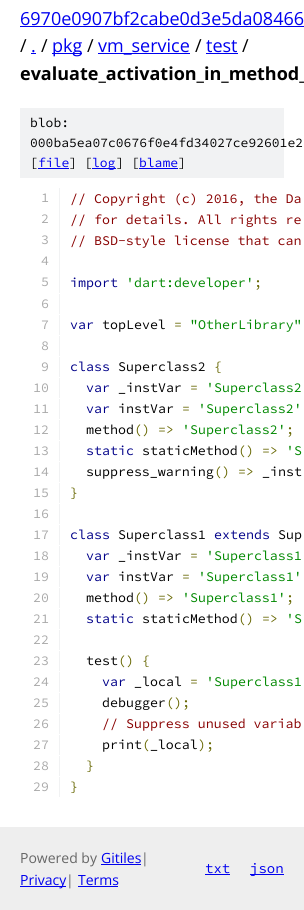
import math
import cairo


def use_color(cr, r, g, b):
  cr.set_source_rgb(r / 255, g / 255, b / 255)

def text(cr, x, y, s, family, size, color, bold=False, italic=False):
  cr.select_font_face(family, cairo.FONT_SLANT_ITALIC if italic else cairo.FONT_SLANT_NORMAL, cairo.FONT_WEIGHT_BOLD if bold else cairo.FONT_WEIGHT_NORMAL)
  cr.set_font_size(size)
  use_color(cr, *color)
  cr.move_to(x, y)
  cr.show_text(s)

def box(cr, x, y, w, h, *color):
  use_color(cr, *color)
  cr.rectangle(x, y, w, h)
  cr.fill()

def draw(cr):
  use_color(cr, 255, 255, 255)
  cr.paint()
  box(cr, 20, 26, 284, 1, 0, 0, 238)
  box(cr, 31, 53, 5, 1, 0, 0, 238)
  box(cr, 52, 53, 30, 1, 0, 0, 238)
  box(cr, 98, 53, 92, 1, 0, 0, 238)
  box(cr, 206, 53, 32, 1, 0, 0, 238)
  box(cr, 20, 108, 264, 70, 241, 242, 243)
  box(cr, 38, 168, 31, 1, 0, 0, 238)
  box(cr, 92, 168, 24, 1, 0, 0, 238)
  box(cr, 139, 168, 39, 1, 0, 0, 238)
  box(cr, 59, 188, 1, 105, 241, 242, 243)
  box(cr, 59, 294, 1, 20, 241, 242, 243)
  box(cr, 59, 315, 1, 20, 241, 242, 243)
  box(cr, 59, 336, 1, 20, 241, 242, 243)
  box(cr, 59, 357, 1, 20, 241, 242, 243)
  box(cr, 59, 378, 1, 20, 241, 242, 243)
  box(cr, 59, 399, 1, 20, 241, 242, 243)
  box(cr, 59, 420, 1, 20, 241, 242, 243)
  box(cr, 59, 441, 1, 20, 241, 242, 243)
  box(cr, 59, 462, 1, 20, 241, 242, 243)
  box(cr, 59, 483, 1, 20, 241, 242, 243)
  box(cr, 59, 504, 1, 20, 241, 242, 243)
  box(cr, 59, 525, 1, 20, 241, 242, 243)
  box(cr, 59, 546, 1, 20, 241, 242, 243)
  box(cr, 59, 567, 1, 20, 241, 242, 243)
  box(cr, 59, 588, 1, 20, 241, 242, 243)
  box(cr, 59, 609, 1, 20, 241, 242, 243)
  box(cr, 59, 630, 1, 20, 241, 242, 243)
  box(cr, 59, 651, 1, 20, 241, 242, 243)
  box(cr, 59, 672, 1, 20, 241, 242, 243)
  box(cr, 59, 693, 1, 20, 241, 242, 243)
  box(cr, 59, 714, 1, 20, 241, 242, 243)
  box(cr, 59, 735, 1, 20, 241, 242, 243)
  box(cr, 59, 756, 1, 20, 241, 242, 243)
  box(cr, 59, 777, 1, 20, 241, 242, 243)
  box(cr, 0, 827, 304, 83, 238, 238, 238)
  box(cr, 101, 864, 40, 1, 0, 0, 238)
  box(cr, 20, 886, 46, 1, 0, 0, 238)
  box(cr, 78, 886, 40, 1, 0, 0, 238)
  box(cr, 205, 874, 25, 1, 0, 0, 238)
  box(cr, 250, 874, 34, 1, 0, 0, 238)
  text(cr, 20, 25, "6970e0907bf2cabe0d3e5da08466", "Open Sans", 18, (0, 0, 238))
  text(cr, 20, 52, "/", "Open Sans", 18, (0, 0, 0))
  text(cr, 31, 52, ".", "Open Sans", 18, (0, 0, 238))
  text(cr, 41, 52, "/", "Open Sans", 18, (0, 0, 0))
  text(cr, 52, 52, "pkg", "Open Sans", 18, (0, 0, 238))
  text(cr, 87, 52, "/", "Open Sans", 18, (0, 0, 0))
  text(cr, 98, 52, "vm_service", "Open Sans", 18, (0, 0, 238))
  text(cr, 195, 52, "/", "Open Sans", 18, (0, 0, 0))
  text(cr, 206, 52, "test", "Open Sans", 18, (0, 0, 238))
  text(cr, 242, 52, "/", "Open Sans", 18, (0, 0, 0))
  text(cr, 20, 80, "evaluate_activation_in_method_", "Open Sans", 18, (0, 0, 0), bold=True)
  text(cr, 30, 127, "blob:", "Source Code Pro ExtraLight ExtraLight", 13, (0, 0, 0))
  text(cr, 30, 147, "000ba5ea07c0676f0e4fd34027ce92601e2", "Source Code Pro ExtraLight ExtraLight", 13, (0, 0, 0))
  text(cr, 30, 167, "[", "Source Code Pro ExtraLight ExtraLight", 13, (0, 0, 0))
  text(cr, 38, 167, "file", "Source Code Pro ExtraLight ExtraLight", 13, (0, 0, 238))
  text(cr, 69, 167, "] [", "Source Code Pro ExtraLight ExtraLight", 13, (0, 0, 0))
  text(cr, 92, 167, "log", "Source Code Pro ExtraLight ExtraLight", 13, (0, 0, 238))
  text(cr, 116, 167, "] [", "Source Code Pro ExtraLight ExtraLight", 13, (0, 0, 0))
  text(cr, 139, 167, "blame", "Source Code Pro ExtraLight ExtraLight", 13, (0, 0, 238))
  text(cr, 178, 167, "]", "Source Code Pro ExtraLight ExtraLight", 13, (0, 0, 0))
  text(cr, 41, 202, "1", "Source Code Pro ExtraLight ExtraLight", 13.3, (170, 170, 170))
  text(cr, 70, 203, "// Copyright (c) 2016, the Da", "Source Code Pro ExtraLight ExtraLight", 13.3, (136, 0, 0))
  text(cr, 41, 223, "2", "Source Code Pro ExtraLight ExtraLight", 13.3, (170, 170, 170))
  text(cr, 70, 224, "// for details. All rights re", "Source Code Pro ExtraLight ExtraLight", 13.3, (136, 0, 0))
  text(cr, 41, 244, "3", "Source Code Pro ExtraLight ExtraLight", 13.3, (170, 170, 170))
  text(cr, 70, 245, "// BSD-style license that can", "Source Code Pro ExtraLight ExtraLight", 13.3, (136, 0, 0))
  text(cr, 41, 265, "4", "Source Code Pro ExtraLight ExtraLight", 13.3, (170, 170, 170))
  text(cr, 41, 286, "5", "Source Code Pro ExtraLight ExtraLight", 13.3, (170, 170, 170))
  text(cr, 70, 287, "import", "Source Code Pro ExtraLight ExtraLight", 13.3, (0, 0, 136))
  text(cr, 126, 287, "'dart:developer'", "Source Code Pro ExtraLight ExtraLight", 13.3, (0, 136, 0))
  text(cr, 254, 287, ";", "Source Code Pro ExtraLight ExtraLight", 13.3, (102, 102, 0))
  text(cr, 41, 308, "6", "Source Code Pro ExtraLight ExtraLight", 13.3, (170, 170, 170))
  text(cr, 41, 329, "7", "Source Code Pro ExtraLight ExtraLight", 13.3, (170, 170, 170))
  text(cr, 70, 329, "var", "Source Code Pro ExtraLight ExtraLight", 13.3, (0, 0, 136))
  text(cr, 102, 329, "topLevel", "Source Code Pro ExtraLight ExtraLight", 13.3, (0, 0, 0))
  text(cr, 174, 329, "=", "Source Code Pro ExtraLight ExtraLight", 13.3, (102, 102, 0))
  text(cr, 190, 329, "\"OtherLibrary\"", "Source Code Pro ExtraLight ExtraLight", 13.3, (0, 136, 0))
  text(cr, 41, 350, "8", "Source Code Pro ExtraLight ExtraLight", 13.3, (170, 170, 170))
  text(cr, 41, 371, "9", "Source Code Pro ExtraLight ExtraLight", 13.3, (170, 170, 170))
  text(cr, 70, 371, "class", "Source Code Pro ExtraLight ExtraLight", 13.3, (0, 0, 136))
  text(cr, 118, 371, "Superclass2", "Source Code Pro ExtraLight ExtraLight", 13.3, (0, 0, 0))
  text(cr, 214, 371, "{", "Source Code Pro ExtraLight ExtraLight", 13.3, (102, 102, 0))
  text(cr, 33, 392, "10", "Source Code Pro ExtraLight ExtraLight", 13.3, (170, 170, 170))
  text(cr, 86, 392, "var", "Source Code Pro ExtraLight ExtraLight", 13.3, (0, 0, 136))
  text(cr, 118, 392, "_instVar", "Source Code Pro ExtraLight ExtraLight", 13.3, (0, 0, 0))
  text(cr, 190, 392, "=", "Source Code Pro ExtraLight ExtraLight", 13.3, (102, 102, 0))
  text(cr, 206, 392, "'Superclass2", "Source Code Pro ExtraLight ExtraLight", 13.3, (0, 136, 0))
  text(cr, 33, 413, "11", "Source Code Pro ExtraLight ExtraLight", 13.3, (170, 170, 170))
  text(cr, 86, 413, "var", "Source Code Pro ExtraLight ExtraLight", 13.3, (0, 0, 136))
  text(cr, 118, 413, "instVar", "Source Code Pro ExtraLight ExtraLight", 13.3, (0, 0, 0))
  text(cr, 182, 413, "=", "Source Code Pro ExtraLight ExtraLight", 13.3, (102, 102, 0))
  text(cr, 198, 413, "'Superclass2'", "Source Code Pro ExtraLight ExtraLight", 13.3, (0, 136, 0))
  text(cr, 33, 434, "12", "Source Code Pro ExtraLight ExtraLight", 13.3, (170, 170, 170))
  text(cr, 86, 434, "method", "Source Code Pro ExtraLight ExtraLight", 13.3, (0, 0, 0))
  text(cr, 134, 434, "() =>", "Source Code Pro ExtraLight ExtraLight", 13.3, (102, 102, 0))
  text(cr, 182, 434, "'Superclass2'", "Source Code Pro ExtraLight ExtraLight", 13.3, (0, 136, 0))
  text(cr, 286, 434, ";", "Source Code Pro ExtraLight ExtraLight", 13.3, (102, 102, 0))
  text(cr, 33, 455, "13", "Source Code Pro ExtraLight ExtraLight", 13.3, (170, 170, 170))
  text(cr, 86, 455, "static", "Source Code Pro ExtraLight ExtraLight", 13.3, (0, 0, 136))
  text(cr, 142, 455, "staticMethod", "Source Code Pro ExtraLight ExtraLight", 13.3, (0, 0, 0))
  text(cr, 238, 455, "() =>", "Source Code Pro ExtraLight ExtraLight", 13.3, (102, 102, 0))
  text(cr, 286, 455, "'S", "Source Code Pro ExtraLight ExtraLight", 13.3, (0, 136, 0))
  text(cr, 33, 476, "14", "Source Code Pro ExtraLight ExtraLight", 13.3, (170, 170, 170))
  text(cr, 86, 476, "suppress_warning", "Source Code Pro ExtraLight ExtraLight", 13.3, (0, 0, 0))
  text(cr, 214, 476, "() =>", "Source Code Pro ExtraLight ExtraLight", 13.3, (102, 102, 0))
  text(cr, 262, 476, "_inst", "Source Code Pro ExtraLight ExtraLight", 13.3, (0, 0, 0))
  text(cr, 33, 497, "15", "Source Code Pro ExtraLight ExtraLight", 13.3, (170, 170, 170))
  text(cr, 70, 497, "}", "Source Code Pro ExtraLight ExtraLight", 13.3, (102, 102, 0))
  text(cr, 33, 518, "16", "Source Code Pro ExtraLight ExtraLight", 13.3, (170, 170, 170))
  text(cr, 33, 539, "17", "Source Code Pro ExtraLight ExtraLight", 13.3, (170, 170, 170))
  text(cr, 70, 539, "class", "Source Code Pro ExtraLight ExtraLight", 13.3, (0, 0, 136))
  text(cr, 118, 539, "Superclass1", "Source Code Pro ExtraLight ExtraLight", 13.3, (0, 0, 0))
  text(cr, 214, 539, "extends", "Source Code Pro ExtraLight ExtraLight", 13.3, (0, 0, 136))
  text(cr, 278, 539, "Sup", "Source Code Pro ExtraLight ExtraLight", 13.3, (0, 0, 0))
  text(cr, 33, 560, "18", "Source Code Pro ExtraLight ExtraLight", 13.3, (170, 170, 170))
  text(cr, 86, 560, "var", "Source Code Pro ExtraLight ExtraLight", 13.3, (0, 0, 136))
  text(cr, 118, 560, "_instVar", "Source Code Pro ExtraLight ExtraLight", 13.3, (0, 0, 0))
  text(cr, 190, 560, "=", "Source Code Pro ExtraLight ExtraLight", 13.3, (102, 102, 0))
  text(cr, 206, 560, "'Superclass1", "Source Code Pro ExtraLight ExtraLight", 13.3, (0, 136, 0))
  text(cr, 33, 581, "19", "Source Code Pro ExtraLight ExtraLight", 13.3, (170, 170, 170))
  text(cr, 86, 581, "var", "Source Code Pro ExtraLight ExtraLight", 13.3, (0, 0, 136))
  text(cr, 118, 581, "instVar", "Source Code Pro ExtraLight ExtraLight", 13.3, (0, 0, 0))
  text(cr, 182, 581, "=", "Source Code Pro ExtraLight ExtraLight", 13.3, (102, 102, 0))
  text(cr, 198, 581, "'Superclass1'", "Source Code Pro ExtraLight ExtraLight", 13.3, (0, 136, 0))
  text(cr, 33, 602, "20", "Source Code Pro ExtraLight ExtraLight", 13.3, (170, 170, 170))
  text(cr, 86, 602, "method", "Source Code Pro ExtraLight ExtraLight", 13.3, (0, 0, 0))
  text(cr, 134, 602, "() =>", "Source Code Pro ExtraLight ExtraLight", 13.3, (102, 102, 0))
  text(cr, 182, 602, "'Superclass1'", "Source Code Pro ExtraLight ExtraLight", 13.3, (0, 136, 0))
  text(cr, 286, 602, ";", "Source Code Pro ExtraLight ExtraLight", 13.3, (102, 102, 0))
  text(cr, 33, 623, "21", "Source Code Pro ExtraLight ExtraLight", 13.3, (170, 170, 170))
  text(cr, 86, 623, "static", "Source Code Pro ExtraLight ExtraLight", 13.3, (0, 0, 136))
  text(cr, 142, 623, "staticMethod", "Source Code Pro ExtraLight ExtraLight", 13.3, (0, 0, 0))
  text(cr, 238, 623, "() =>", "Source Code Pro ExtraLight ExtraLight", 13.3, (102, 102, 0))
  text(cr, 286, 623, "'S", "Source Code Pro ExtraLight ExtraLight", 13.3, (0, 136, 0))
  text(cr, 33, 644, "22", "Source Code Pro ExtraLight ExtraLight", 13.3, (170, 170, 170))
  text(cr, 33, 665, "23", "Source Code Pro ExtraLight ExtraLight", 13.3, (170, 170, 170))
  text(cr, 86, 665, "test", "Source Code Pro ExtraLight ExtraLight", 13.3, (0, 0, 0))
  text(cr, 118, 665, "() {", "Source Code Pro ExtraLight ExtraLight", 13.3, (102, 102, 0))
  text(cr, 33, 686, "24", "Source Code Pro ExtraLight ExtraLight", 13.3, (170, 170, 170))
  text(cr, 102, 686, "var", "Source Code Pro ExtraLight ExtraLight", 13.3, (0, 0, 136))
  text(cr, 134, 686, "_local", "Source Code Pro ExtraLight ExtraLight", 13.3, (0, 0, 0))
  text(cr, 190, 686, "=", "Source Code Pro ExtraLight ExtraLight", 13.3, (102, 102, 0))
  text(cr, 206, 686, "'Superclass1", "Source Code Pro ExtraLight ExtraLight", 13.3, (0, 136, 0))
  text(cr, 33, 707, "25", "Source Code Pro ExtraLight ExtraLight", 13.3, (170, 170, 170))
  text(cr, 102, 707, "debugger", "Source Code Pro ExtraLight ExtraLight", 13.3, (0, 0, 0))
  text(cr, 166, 707, "();", "Source Code Pro ExtraLight ExtraLight", 13.3, (102, 102, 0))
  text(cr, 33, 728, "26", "Source Code Pro ExtraLight ExtraLight", 13.3, (170, 170, 170))
  text(cr, 102, 728, "// Suppress unused variab", "Source Code Pro ExtraLight ExtraLight", 13.3, (136, 0, 0))
  text(cr, 33, 749, "27", "Source Code Pro ExtraLight ExtraLight", 13.3, (170, 170, 170))
  text(cr, 102, 749, "print _local", "Source Code Pro ExtraLight ExtraLight", 13.3, (0, 0, 0))
  text(cr, 142, 749, "(", "Source Code Pro ExtraLight ExtraLight", 13.3, (102, 102, 0))
  text(cr, 198, 749, ");", "Source Code Pro ExtraLight ExtraLight", 13.3, (102, 102, 0))
  text(cr, 33, 770, "28", "Source Code Pro ExtraLight ExtraLight", 13.3, (170, 170, 170))
  text(cr, 86, 770, "}", "Source Code Pro ExtraLight ExtraLight", 13.3, (102, 102, 0))
  text(cr, 33, 791, "29", "Source Code Pro ExtraLight ExtraLight", 13.3, (170, 170, 170))
  text(cr, 70, 791, "}", "Source Code Pro ExtraLight ExtraLight", 13.3, (102, 102, 0))
  text(cr, 20, 863, "Powered by", "Open Sans", 14, (102, 102, 102))
  text(cr, 101, 863, "Gitiles", "Open Sans", 14, (0, 0, 238))
  text(cr, 141, 863, "|", "Open Sans", 14, (102, 102, 102))
  text(cr, 20, 885, "Privacy", "Open Sans", 14, (0, 0, 238))
  text(cr, 66, 885, "|", "Open Sans", 14, (102, 102, 102))
  text(cr, 78, 885, "Terms", "Open Sans", 14, (0, 0, 238))
  text(cr, 205, 873, "txt", "Source Code Pro ExtraLight ExtraLight", 14, (0, 0, 238))
  text(cr, 250, 873, "json", "Source Code Pro ExtraLight ExtraLight", 14, (0, 0, 238))


surface = cairo.ImageSurface(cairo.FORMAT_RGB24, 304, 910)
cr = cairo.Context(surface)
options = cairo.FontOptions()
options.set_hint_metrics(cairo.HINT_METRICS_OFF)
options.set_hint_style(cairo.HINT_STYLE_NONE)
cr.set_font_options(options)
cr.set_miter_limit(4)
draw(cr)
surface.write_to_png("out.png")
